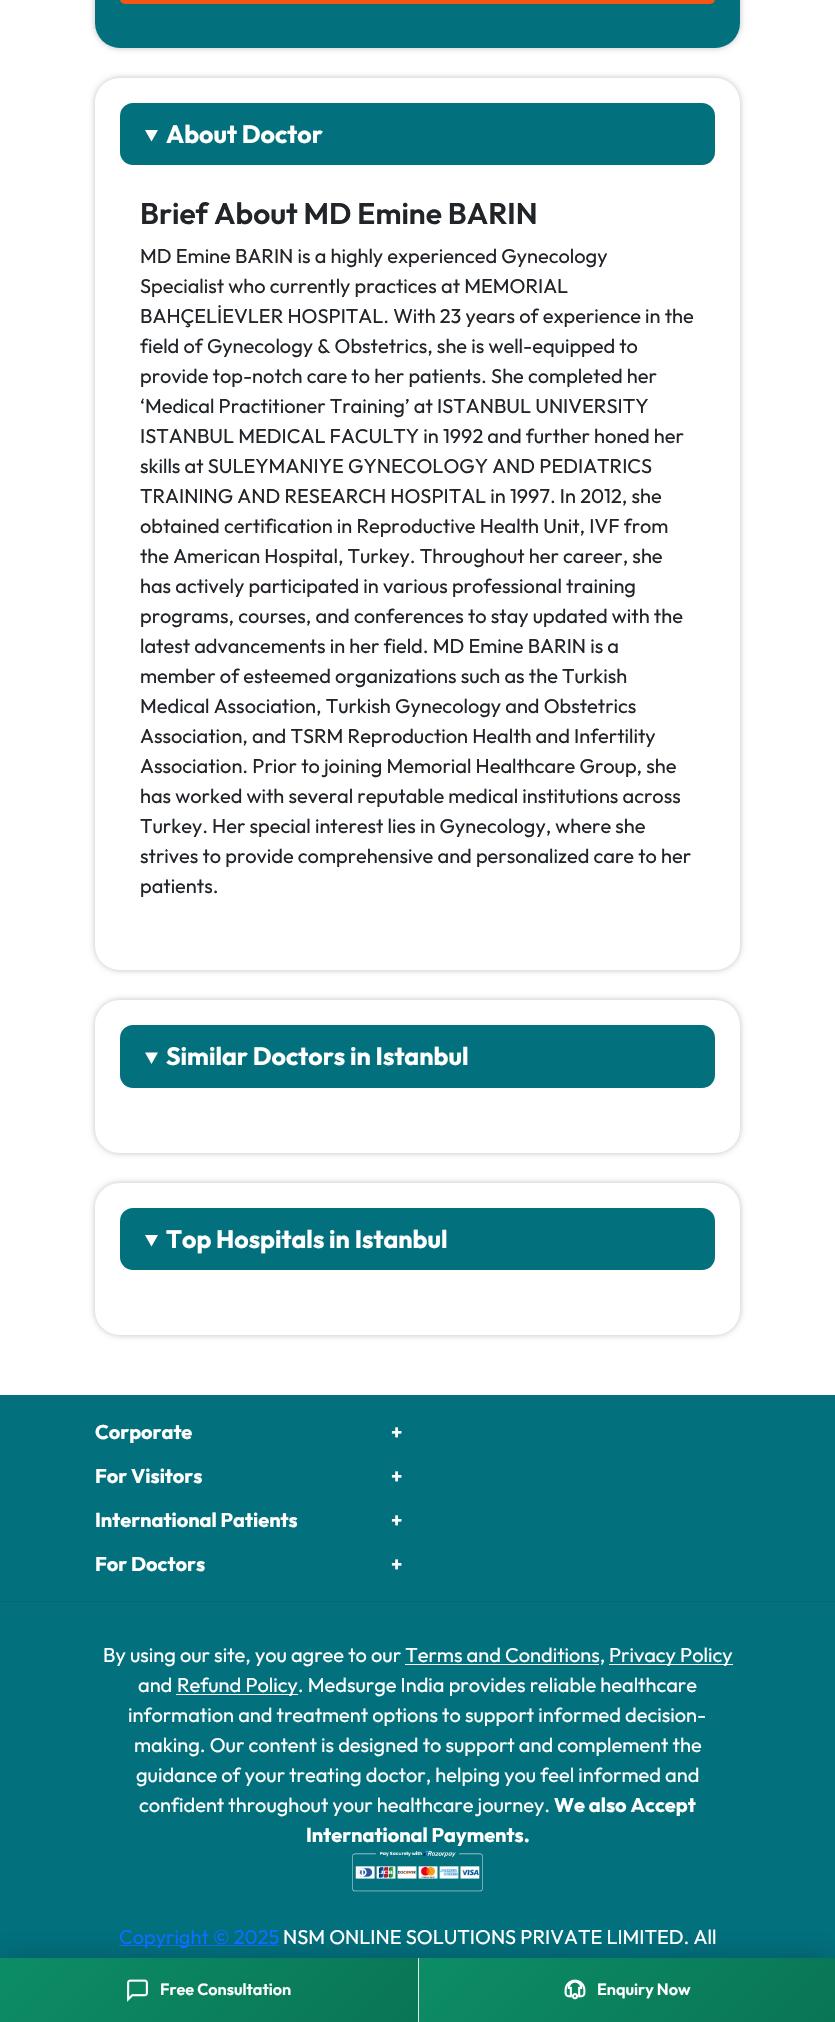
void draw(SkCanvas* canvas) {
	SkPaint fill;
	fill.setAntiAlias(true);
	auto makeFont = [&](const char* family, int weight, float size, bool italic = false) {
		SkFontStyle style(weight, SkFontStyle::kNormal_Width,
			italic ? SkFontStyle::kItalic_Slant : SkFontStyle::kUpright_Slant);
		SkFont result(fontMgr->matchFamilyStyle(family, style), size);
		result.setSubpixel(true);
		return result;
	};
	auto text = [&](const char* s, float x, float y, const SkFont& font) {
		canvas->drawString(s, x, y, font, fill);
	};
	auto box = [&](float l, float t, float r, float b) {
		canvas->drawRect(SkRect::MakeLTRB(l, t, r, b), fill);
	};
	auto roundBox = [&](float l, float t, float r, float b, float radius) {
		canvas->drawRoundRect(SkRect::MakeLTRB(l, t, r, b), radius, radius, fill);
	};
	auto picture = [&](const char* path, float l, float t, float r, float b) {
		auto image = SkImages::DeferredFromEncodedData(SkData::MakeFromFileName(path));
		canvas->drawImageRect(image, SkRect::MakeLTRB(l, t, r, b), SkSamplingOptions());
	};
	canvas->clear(0xFFFFFFFF);
	fill.setColor(0x40000000);
	fill.setMaskFilter(SkMaskFilter::MakeBlur(kNormal_SkBlurStyle, 3));
	canvas->drawRoundRect(SkRect::MakeLTRB(95, -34, 740, 48), 25, 25, fill);
	fill.setMaskFilter(nullptr);
	fill.setColor(0xFF02707D);
	roundBox(95, -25, 740, 48, 25);
	fill.setColor(0xFFF65614);
	roundBox(120, -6, 715, 4, 6);
	canvas->save();
	canvas->clipPath(SkPathBuilder(SkPathFillType::kEvenOdd).moveTo(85, 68).lineTo(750, 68).lineTo(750, 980).lineTo(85, 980).close().moveTo(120, 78).lineTo(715, 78).cubicTo(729, 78, 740, 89, 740, 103).lineTo(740, 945).cubicTo(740, 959, 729, 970, 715, 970).lineTo(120, 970).cubicTo(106, 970, 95, 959, 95, 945).lineTo(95, 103).cubicTo(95, 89, 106, 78, 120, 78).close().detach(), true);
	fill.setColor(0x40000000);
	fill.setMaskFilter(SkMaskFilter::MakeBlur(kNormal_SkBlurStyle, 3));
	canvas->drawRoundRect(SkRect::MakeLTRB(95, 78, 740, 970), 25, 25, fill);
	fill.setMaskFilter(nullptr);
	canvas->restore();
	fill.setColor(0xFF02707D);
	roundBox(120, 103, 715, 165, 13);
	fill.setColor(0xFFFFFFFF);
	canvas->drawPath(SkPathBuilder().moveTo(145, 130).lineTo(158, 130).lineTo(151.5f, 141.5f).close().detach(), fill);
	canvas->save();
	canvas->clipPath(SkPathBuilder(SkPathFillType::kEvenOdd).moveTo(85, 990).lineTo(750, 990).lineTo(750, 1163).lineTo(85, 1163).close().moveTo(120, 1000).lineTo(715, 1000).cubicTo(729, 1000, 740, 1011, 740, 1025).lineTo(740, 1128).cubicTo(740, 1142, 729, 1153, 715, 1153).lineTo(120, 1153).cubicTo(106, 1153, 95, 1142, 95, 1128).lineTo(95, 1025).cubicTo(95, 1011, 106, 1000, 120, 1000).close().detach(), true);
	fill.setColor(0x40000000);
	fill.setMaskFilter(SkMaskFilter::MakeBlur(kNormal_SkBlurStyle, 3));
	canvas->drawRoundRect(SkRect::MakeLTRB(95, 1000, 740, 1153), 25, 25, fill);
	fill.setMaskFilter(nullptr);
	canvas->restore();
	fill.setColor(0xFF02707D);
	roundBox(120, 1025, 715, 1088, 13);
	fill.setColor(0xFFFFFFFF);
	canvas->drawPath(SkPathBuilder().moveTo(145, 1052.5f).lineTo(158, 1052.5f).lineTo(151.5f, 1064).close().detach(), fill);
	canvas->save();
	canvas->clipPath(SkPathBuilder(SkPathFillType::kEvenOdd).moveTo(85, 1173).lineTo(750, 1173).lineTo(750, 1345).lineTo(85, 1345).close().moveTo(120, 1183).lineTo(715, 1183).cubicTo(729, 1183, 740, 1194, 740, 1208).lineTo(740, 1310).cubicTo(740, 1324, 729, 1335, 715, 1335).lineTo(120, 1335).cubicTo(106, 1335, 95, 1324, 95, 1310).lineTo(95, 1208).cubicTo(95, 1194, 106, 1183, 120, 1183).close().detach(), true);
	fill.setColor(0x40000000);
	fill.setMaskFilter(SkMaskFilter::MakeBlur(kNormal_SkBlurStyle, 3));
	canvas->drawRoundRect(SkRect::MakeLTRB(95, 1183, 740, 1335), 25, 25, fill);
	fill.setMaskFilter(nullptr);
	canvas->restore();
	fill.setColor(0xFF02707D);
	roundBox(120, 1208, 715, 1270, 13);
	fill.setColor(0xFFFFFFFF);
	canvas->drawPath(SkPathBuilder().moveTo(145, 1235).lineTo(158, 1235).lineTo(151.5f, 1246.5f).close().detach(), fill);
	fill.setColor(0xFF02707D);
	box(0, 1395, 835, 1958);
	fill.setColor(0xFF066874);
	box(0, 1601, 835, 1602);
	fill.setColor(0xFFFFFFFF);
	box(609, 1664, 733, 1665);
	box(405, 1664, 599, 1665);
	box(176, 1694, 298, 1695);
	picture("image0.png", 352, 1850, 483, 1892);
	fill.setColor(0xFF0D6EFD);
	box(119, 1945, 279, 1946);
	fill.setColor(0x26000000);
	fill.setMaskFilter(SkMaskFilter::MakeBlur(kNormal_SkBlurStyle, 12.5f));
	canvas->drawRect(SkRect::MakeLTRB(0, 1953, 835, 2018), fill);
	fill.setMaskFilter(nullptr);
	fill.setColor(0xFFE5E7EB);
	box(418, 1958, 419, 2022);
	{
		const SkColor colors[] = {0xFF0C8D66, 0xFF0A7555};
		const float stops[] = {0, 1};
		const SkPoint ends[] = {{88, 1869}, {329, 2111}};
		fill.setShader(SkGradientShader::MakeLinear(ends, colors, stops, 2, SkTileMode::kClamp));
		fill.setAlpha(255);
	}
	box(0, 1958, 418, 2022);
	picture("image1.png", 127, 1979, 148, 2002);
	{
		const SkColor colors[] = {0xFF0C8D66, 0xFF0A7555};
		const float stops[] = {0, 1};
		const SkPoint ends[] = {{507, 1870}, {747, 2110}};
		fill.setShader(SkGradientShader::MakeLinear(ends, colors, stops, 2, SkTileMode::kClamp));
		fill.setAlpha(255);
	}
	box(419, 1958, 835, 2022);
	picture("image2.png", 564, 1979, 586, 2000);
	auto font1 = makeFont("Outfit", 700, 25);
	fill.setShader(nullptr);
	fill.setColor(0xFFFFFFFF);
	text("About Doctor", 166, 143, font1);
	auto font2 = makeFont("Outfit", 600, 30);
	fill.setColor(0xFF212529);
	text("Brief About MD Emine BARIN", 140, 224, font2);
	auto font3 = makeFont("Outfit", 400, 20);
	text("MD Emine BARIN is a highly experienced Gynecology", 140, 263, font3);
	text("Specialist who currently practices at MEMORIAL", 140, 293, font3);
	text("BAHÇELİEVLER HOSPITAL. With 23 years of experience in the", 140, 323, font3);
	text("field of Gynecology & Obstetrics, she is well-equipped to", 140, 353, font3);
	text("provide top-notch care to her patients. She completed her", 140, 383, font3);
	text("‘Medical Practitioner Training’ at ISTANBUL UNIVERSITY", 140, 413, font3);
	text("ISTANBUL MEDICAL FACULTY in 1992 and further honed her", 140, 443, font3);
	text("skills at SULEYMANIYE GYNECOLOGY AND PEDIATRICS", 140, 473, font3);
	text("TRAINING AND RESEARCH HOSPITAL in 1997. In 2012, she", 140, 503, font3);
	text("obtained certification in Reproductive Health Unit, IVF from", 140, 533, font3);
	text("the American Hospital, Turkey. Throughout her career, she", 140, 563, font3);
	text("has actively participated in various professional training", 140, 593, font3);
	text("programs, courses, and conferences to stay updated with the", 140, 623, font3);
	text("latest advancements in her field. MD Emine BARIN is a", 140, 653, font3);
	text("member of esteemed organizations such as the Turkish", 140, 683, font3);
	text("Medical Association, Turkish Gynecology and Obstetrics", 140, 713, font3);
	text("Association, and TSRM Reproduction Health and Infertility", 140, 743, font3);
	text("Association. Prior to joining Memorial Healthcare Group, she", 140, 773, font3);
	text("has worked with several reputable medical institutions across", 140, 803, font3);
	text("Turkey. Her special interest lies in Gynecology, where she", 140, 833, font3);
	text("strives to provide comprehensive and personalized care to her", 140, 863, font3);
	text("patients.", 140, 893, font3);
	fill.setColor(0xFFFFFFFF);
	text("Similar Doctors in Istanbul", 166, 1065, font1);
	text("Top Hospitals in Istanbul", 166, 1248, font1);
	auto font4 = makeFont("Outfit", 700, 20);
	text("Corporate", 95, 1439, font4);
	text("+", 391, 1439, font4);
	text("For Visitors", 95, 1483, font4);
	text("+", 391, 1483, font4);
	text("International Patients", 95, 1527, font4);
	text("+", 391, 1527, font4);
	text("For Doctors", 95, 1571, font4);
	text("+", 391, 1571, font4);
	text("By using our site, you agree to our Terms and Conditions,", 103, 1662, font3);
	text("Privacy Policy", 609, 1662, font3);
	text("and", 138, 1692, font3);
	text("Refund Policy. Medsurge India provides reliable healthcare", 177, 1692, font3);
	text("information and treatment options to support informed decision-", 128, 1722, font3);
	text("making. Our content is designed to support and complement the", 134, 1752, font3);
	text("guidance of your treating doctor, helping you feel informed and", 136, 1782, font3);
	text("confident throughout your healthcare journey.", 139, 1812, font3);
	text("We also Accept", 554, 1812, font4);
	text("International Payments.", 306, 1842, font4);
	fill.setColor(0xFF0D6EFD);
	text("Copyright © 2025", 119, 1944, font3);
	fill.setColor(0xFFFFFFFF);
	text("NSM ONLINE SOLUTIONS PRIVATE LIMITED. All", 283, 1944, font3);
	auto font5 = makeFont("Outfit", 600, 16.25f);
	text("Free Consultation", 160, 1995, font5);
	text("Enquiry Now", 597, 1995, font5);
}
